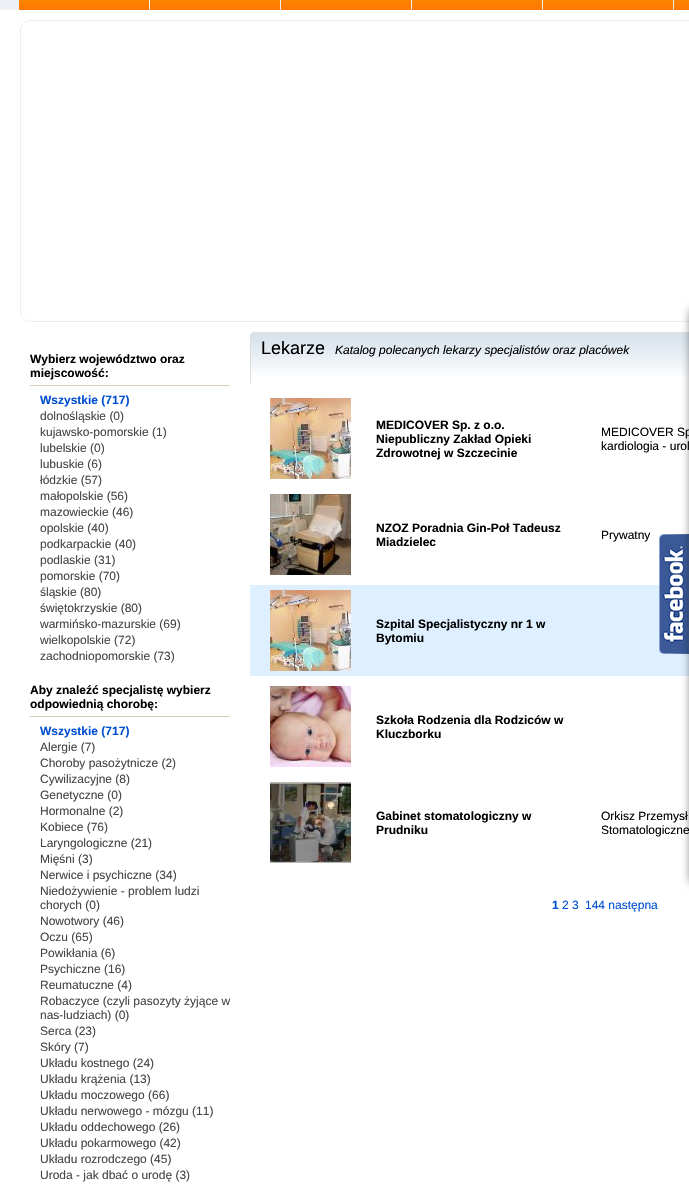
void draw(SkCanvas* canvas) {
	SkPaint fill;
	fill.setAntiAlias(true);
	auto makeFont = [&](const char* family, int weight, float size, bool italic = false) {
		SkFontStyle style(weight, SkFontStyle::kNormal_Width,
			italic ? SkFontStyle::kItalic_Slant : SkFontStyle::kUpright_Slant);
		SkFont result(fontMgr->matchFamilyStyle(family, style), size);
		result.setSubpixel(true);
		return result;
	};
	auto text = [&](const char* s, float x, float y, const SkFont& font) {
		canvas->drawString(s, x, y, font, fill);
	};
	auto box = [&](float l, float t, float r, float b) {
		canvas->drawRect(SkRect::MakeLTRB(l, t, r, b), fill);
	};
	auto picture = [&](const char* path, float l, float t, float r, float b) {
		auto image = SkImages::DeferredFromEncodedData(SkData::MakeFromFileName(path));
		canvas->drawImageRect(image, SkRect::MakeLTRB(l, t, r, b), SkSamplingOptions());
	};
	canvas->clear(0xFFFFFFFF);
	fill.setColor(0xFFDEEFFF);
	box(250, 585, 689, 676);
	picture("image0.png", 659, 534, 689, 654);
	fill.setStyle(SkPaint::kStroke_Style);
	fill.setStrokeWidth(1);
	fill.setColor(0xFFEEEEEE);
	canvas->drawRoundRect(SkRect::MakeLTRB(20.5f, 20.5f, 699.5f, 321.5f), 9.5f, 9.5f, fill);
	picture("image4.png", 250, 333, 689, 375);
	fill.setStyle(SkPaint::kFill_Style);
	fill.setColor(0xFFDDDDDD);
	canvas->drawPath(SkPathBuilder(SkPathFillType::kEvenOdd).moveTo(255, 332).lineTo(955, 332).cubicTo(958, 332, 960, 334, 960, 337).lineTo(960, 383).lineTo(250, 383).lineTo(250, 337).cubicTo(250, 334, 252, 332, 255, 332).close().moveTo(255, 333).lineTo(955, 333).cubicTo(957, 333, 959, 335, 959, 337).lineTo(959, 383).lineTo(251, 383).lineTo(251, 337).cubicTo(251, 335, 253, 333, 255, 333).close().detach(), fill);
	fill.setColor(0x99000000);
	fill.setMaskFilter(SkMaskFilter::MakeBlur(kNormal_SkBlurStyle, 5));
	canvas->drawRect(SkRect::MakeLTRB(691, 310, 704, 882), fill);
	fill.setMaskFilter(nullptr);
	picture("image1.png", 0, 0, 674, 10);
	picture("image2.png", 19, 0, 149, 10);
	picture("image2.png", 150, 0, 280, 10);
	picture("image2.png", 281, 0, 411, 10);
	picture("image2.png", 412, 0, 542, 10);
	picture("image2.png", 543, 0, 673, 10);
	picture("image3.png", 674, 0, 689, 10);
	fill.setColor(0xFFDAD0B4);
	box(30, 385, 230, 386);
	box(30, 716, 230, 717);
	picture("image5.png", 270, 398, 351, 479);
	picture("image6.png", 270, 494, 351, 575);
	picture("image5.png", 270, 590, 351, 671);
	picture("image7.png", 270, 686, 351, 767);
	picture("image8.png", 270, 782, 351, 863);
	auto font1 = makeFont("Liberation Sans", 700, 12);
	fill.setColor(0xFF000000);
	text("Wybierz województwo oraz", 30, 363, font1);
	text("miejscowość:", 30, 377, font1);
	fill.setColor(0xFF004FD2);
	text("Wszystkie (717)", 40, 404, font1);
	auto font2 = makeFont("Liberation Sans", 400, 12);
	fill.setColor(0xFF444444);
	text("dolnośląskie (0)", 40, 420, font2);
	text("kujawsko-pomorskie (1)", 40, 436, font2);
	text("lubelskie (0)", 40, 452, font2);
	text("lubuskie (6)", 40, 468, font2);
	text("łódzkie (57)", 40, 484, font2);
	text("małopolskie (56)", 40, 500, font2);
	text("mazowieckie (46)", 40, 516, font2);
	text("opolskie (40)", 40, 532, font2);
	text("podkarpackie (40)", 40, 548, font2);
	text("podlaskie (31)", 40, 564, font2);
	text("pomorskie (70)", 40, 580, font2);
	text("śląskie (80)", 40, 596, font2);
	text("świętokrzyskie (80)", 40, 612, font2);
	text("warmińsko-mazurskie (69)", 40, 628, font2);
	text("wielkopolskie (72)", 40, 644, font2);
	text("zachodniopomorskie (73)", 40, 660, font2);
	fill.setColor(0xFF000000);
	text("Aby znaleźć specjalistę wybierz", 30, 694, font1);
	text("odpowiednią chorobę:", 30, 708, font1);
	fill.setColor(0xFF004FD2);
	text("Wszystkie (717)", 40, 735, font1);
	fill.setColor(0xFF444444);
	text("Alergie (7)", 40, 751, font2);
	text("Choroby pasożytnicze (2)", 40, 767, font2);
	text("Cywilizacyjne (8)", 40, 783, font2);
	text("Genetyczne (0)", 40, 799, font2);
	text("Hormonalne (2)", 40, 815, font2);
	text("Kobiece (76)", 40, 831, font2);
	text("Laryngologiczne (21)", 40, 847, font2);
	text("Mięśni (3)", 40, 863, font2);
	text("Nerwice i psychiczne (34)", 40, 879, font2);
	text("Niedożywienie - problem ludzi", 40, 895, font2);
	text("chorych (0)", 40, 909, font2);
	text("Nowotwory (46)", 40, 925, font2);
	text("Oczu (65)", 40, 941, font2);
	text("Powikłania (6)", 40, 957, font2);
	text("Psychiczne (16)", 40, 973, font2);
	text("Reumatuczne (4)", 40, 989, font2);
	text("Robaczyce (czyli pasozyty żyjące w", 40, 1005, font2);
	text("nas-ludziach) (0)", 40, 1019, font2);
	text("Serca (23)", 40, 1035, font2);
	text("Skóry (7)", 40, 1051, font2);
	text("Układu kostnego (24)", 40, 1067, font2);
	text("Układu krążenia (13)", 40, 1083, font2);
	text("Układu moczowego (66)", 40, 1099, font2);
	text("Układu nerwowego - mózgu (11)", 40, 1115, font2);
	text("Układu oddechowego (26)", 40, 1131, font2);
	text("Układu pokarmowego (42)", 40, 1147, font2);
	text("Układu rozrodczego (45)", 40, 1163, font2);
	text("Uroda - jak dbać o urodę (3)", 40, 1179, font2);
	auto font3 = makeFont("Liberation Sans", 400, 18);
	fill.setColor(0xFF000000);
	text("Lekarze", 261, 354, font3);
	auto font4 = makeFont("Liberation Sans", 400, 12, true);
	text("Katalog polecanych lekarzy specjalistów oraz placówek", 335, 354, font4);
	text("MEDICOVER Sp. z o.o.", 376, 429, font1);
	text("Niepubliczny Zakład Opieki", 376, 443, font1);
	text("Zdrowotnej w Szczecinie", 376, 457, font1);
	text("MEDICOVER Sp", 601, 436, font2);
	text("kardiologia - urol", 601, 450, font2);
	text("NZOZ Poradnia Gin-Poł Tadeusz", 376, 532, font1);
	text("Miadzielec", 376, 546, font1);
	text("Prywatny", 601, 539, font2);
	text("Szpital Specjalistyczny nr 1 w", 376, 628, font1);
	text("Bytomiu", 376, 642, font1);
	text("Szkoła Rodzenia dla Rodziców w", 376, 724, font1);
	text("Kluczborku", 376, 738, font1);
	text("Gabinet stomatologiczny w", 376, 820, font1);
	text("Prudniku", 376, 834, font1);
	text("Orkisz Przemysł", 601, 820, font2);
	text("Stomatologiczne", 601, 834, font2);
	fill.setColor(0xFF004FD2);
	text("1", 552, 909, font1);
	text("2 3", 562, 909, font2);
	text("144 następna", 585, 909, font2);
}
